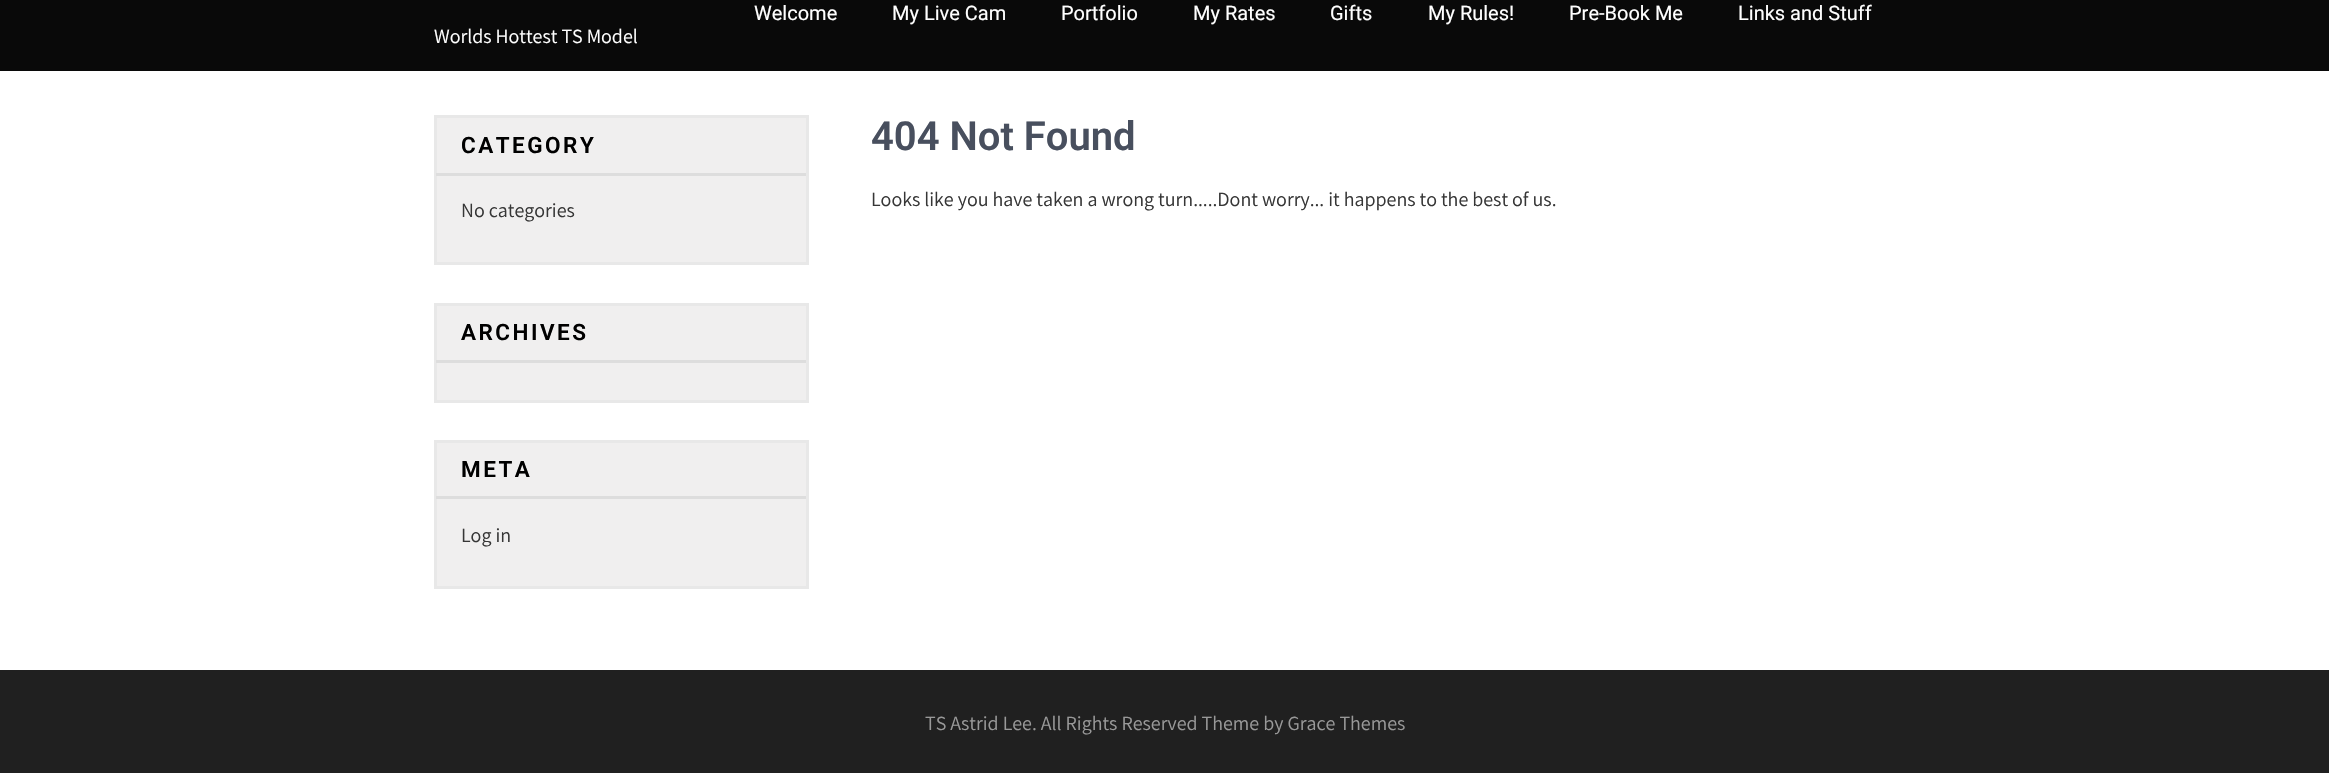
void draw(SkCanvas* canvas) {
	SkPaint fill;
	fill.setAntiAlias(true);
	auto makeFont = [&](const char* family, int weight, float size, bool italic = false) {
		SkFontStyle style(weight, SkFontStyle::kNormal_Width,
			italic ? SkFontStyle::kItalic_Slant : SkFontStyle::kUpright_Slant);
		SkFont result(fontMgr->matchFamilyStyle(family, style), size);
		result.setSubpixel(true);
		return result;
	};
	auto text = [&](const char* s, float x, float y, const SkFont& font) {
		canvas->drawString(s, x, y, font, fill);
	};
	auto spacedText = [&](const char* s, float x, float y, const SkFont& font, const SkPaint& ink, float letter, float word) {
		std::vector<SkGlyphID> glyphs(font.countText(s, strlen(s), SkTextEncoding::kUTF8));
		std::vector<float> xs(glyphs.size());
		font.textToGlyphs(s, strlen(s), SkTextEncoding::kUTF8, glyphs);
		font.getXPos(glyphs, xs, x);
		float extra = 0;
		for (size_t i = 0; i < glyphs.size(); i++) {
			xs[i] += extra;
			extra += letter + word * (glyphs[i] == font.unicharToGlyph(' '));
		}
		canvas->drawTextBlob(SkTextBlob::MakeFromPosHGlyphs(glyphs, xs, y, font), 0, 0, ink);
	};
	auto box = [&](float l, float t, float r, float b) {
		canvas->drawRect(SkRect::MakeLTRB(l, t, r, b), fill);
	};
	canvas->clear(0xFFFFFFFF);
	fill.setColor(0xFF090909);
	box(0, 0, 2329, 71);
	fill.setColor(0xFFF0EFEF);
	canvas->drawRect(SkRect::MakeLTRB(435.5f, 116.5f, 807.5f, 263.5f), fill);
	fill.setStyle(SkPaint::kStroke_Style);
	fill.setStrokeWidth(3);
	fill.setColor(0xFFE8E8E8);
	canvas->drawRect(SkRect::MakeLTRB(435.5f, 116.5f, 807.5f, 263.5f), fill);
	fill.setStyle(SkPaint::kFill_Style);
	fill.setColor(0xFFDDDDDD);
	box(436, 173, 806, 176);
	fill.setColor(0xFFF0EFEF);
	canvas->drawRect(SkRect::MakeLTRB(435.5f, 304.5f, 807.5f, 401.5f), fill);
	fill.setStyle(SkPaint::kStroke_Style);
	fill.setColor(0xFFE8E8E8);
	canvas->drawRect(SkRect::MakeLTRB(435.5f, 304.5f, 807.5f, 401.5f), fill);
	fill.setStyle(SkPaint::kFill_Style);
	fill.setColor(0xFFDDDDDD);
	box(436, 360, 806, 363);
	fill.setColor(0xFFF0EFEF);
	canvas->drawRect(SkRect::MakeLTRB(435.5f, 441.5f, 807.5f, 587.5f), fill);
	fill.setStyle(SkPaint::kStroke_Style);
	fill.setColor(0xFFE8E8E8);
	canvas->drawRect(SkRect::MakeLTRB(435.5f, 441.5f, 807.5f, 587.5f), fill);
	fill.setStyle(SkPaint::kFill_Style);
	fill.setColor(0xFFDDDDDD);
	box(436, 496, 806, 499);
	fill.setColor(0xFF202020);
	box(0, 670, 2329, 773);
	auto font1 = makeFont("Roboto", 400, 20);
	fill.setColor(0xFFFFFFFF);
	text("Welcome", 754, 20, font1);
	text("My Live Cam", 892, 20, font1);
	text("Portfolio", 1061, 20, font1);
	text("My Rates", 1193, 20, font1);
	text("Gifts", 1330, 20, font1);
	text("My Rules!", 1428, 20, font1);
	text("Pre-Book Me", 1569, 20, font1);
	text("Links and Stuff", 1738, 20, font1);
	auto font2 = makeFont("Assistant", 400, 20);
	text("Worlds Hottest TS Model", 434, 43, font2);
	auto font3 = makeFont("Roboto", 600, 22.5f);
	fill.setColor(0xFF000000);
	spacedText("CATEGORY", 461, 153, font3, fill, 2.5f, 0);
	fill.setColor(0xFF363636);
	text("No categories", 461, 217, font2);
	fill.setColor(0xFF000000);
	spacedText("ARCHIVES", 461, 340, font3, fill, 2.5f, 0);
	spacedText("META", 461, 477, font3, fill, 2.5f, 0);
	fill.setColor(0xFF363636);
	text("Log in", 461, 542, font2);
	auto font4 = makeFont("Roboto", 600, 40);
	fill.setColor(0xFF484F5E);
	text("404 Not Found", 871, 150, font4);
	fill.setColor(0xFF363636);
	text("Looks like you have taken a wrong turn.....Dont worry... it happens to the best of us.", 871, 206, font2);
	fill.setColor(0xFF999999);
	text("TS Astrid Lee. All Rights Reserved Theme by Grace Themes", 925, 730, font2);
}
